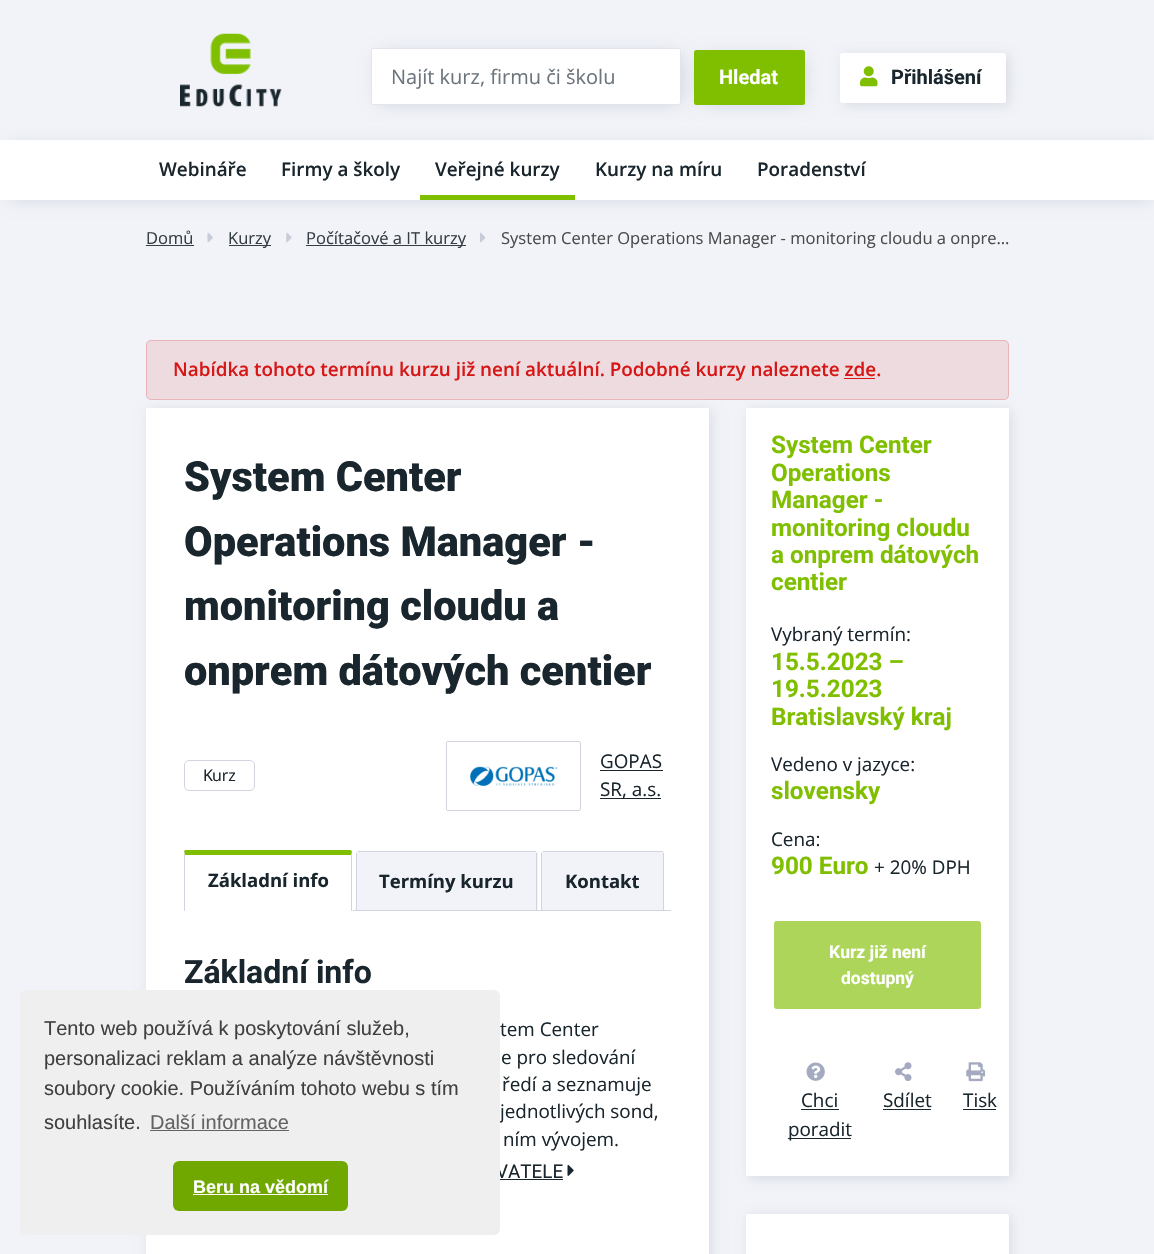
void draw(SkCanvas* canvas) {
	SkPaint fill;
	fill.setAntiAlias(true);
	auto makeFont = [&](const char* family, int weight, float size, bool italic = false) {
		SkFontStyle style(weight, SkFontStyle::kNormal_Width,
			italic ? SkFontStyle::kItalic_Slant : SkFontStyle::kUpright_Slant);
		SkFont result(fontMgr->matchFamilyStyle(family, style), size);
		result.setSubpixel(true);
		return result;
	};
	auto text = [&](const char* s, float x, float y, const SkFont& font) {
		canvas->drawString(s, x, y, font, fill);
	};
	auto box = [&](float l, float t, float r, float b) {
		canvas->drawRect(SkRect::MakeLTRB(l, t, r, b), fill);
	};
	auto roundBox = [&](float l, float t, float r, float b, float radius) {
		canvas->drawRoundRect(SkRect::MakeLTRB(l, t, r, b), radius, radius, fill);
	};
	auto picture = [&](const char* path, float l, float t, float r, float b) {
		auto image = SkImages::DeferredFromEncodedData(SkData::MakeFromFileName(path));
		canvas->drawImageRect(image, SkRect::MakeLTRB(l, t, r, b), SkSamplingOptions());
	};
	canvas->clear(0xFFF1F3F8);
	picture("image0.png", 180, 33, 282, 107);
	fill.setColor(0xFFC2C6D5);
	fill.setMaskFilter(SkMaskFilter::MakeBlur(kNormal_SkBlurStyle, 9.5f));
	canvas->drawRect(SkRect::MakeLTRB(380, 56, 678, 101), fill);
	fill.setMaskFilter(nullptr);
	fill.setColor(0xFFFFFFFF);
	canvas->drawRoundRect(SkRect::MakeLTRB(371.5f, 48.5f, 680.5f, 104.5f), 2, 2, fill);
	fill.setStyle(SkPaint::kStroke_Style);
	fill.setStrokeWidth(1);
	fill.setColor(0xFFE3E5EC);
	canvas->drawRoundRect(SkRect::MakeLTRB(371.5f, 48.5f, 680.5f, 104.5f), 2, 2, fill);
	fill.setStyle(SkPaint::kFill_Style);
	fill.setColor(0xFFC2C6D5);
	fill.setMaskFilter(SkMaskFilter::MakeBlur(kNormal_SkBlurStyle, 9.5f));
	canvas->drawRect(SkRect::MakeLTRB(703, 59, 801, 101), fill);
	fill.setMaskFilter(nullptr);
	fill.setColor(0xFF7FBF00);
	roundBox(694, 50, 805, 105, 2.5f);
	fill.setColor(0xFFD8DBE4);
	fill.setMaskFilter(SkMaskFilter::MakeBlur(kNormal_SkBlurStyle, 6));
	canvas->drawRoundRect(SkRect::MakeLTRB(843, 55, 1009, 105), 2.5f, 2.5f, fill);
	fill.setMaskFilter(nullptr);
	fill.setColor(0xFFFFFFFF);
	roundBox(840, 53, 1006, 103, 2.5f);
	picture("image1.png", 860, 66, 878, 87);
	fill.setColor(0xFFC5C9D7);
	fill.setMaskFilter(SkMaskFilter::MakeBlur(kNormal_SkBlurStyle, 9.5f));
	canvas->drawRect(SkRect::MakeLTRB(9, 149, 1151, 196), fill);
	fill.setMaskFilter(nullptr);
	fill.setColor(0xFFFFFFFF);
	box(0, 140, 1154, 200);
	fill.setColor(0xFF7FBF00);
	box(420, 195, 575, 200);
	fill.setColor(0xFF353E44);
	box(146, 245, 194, 246);
	picture("image2.png", 207, 232, 213, 243);
	box(229, 245, 271, 246);
	picture("image3.png", 286, 232, 292, 243);
	box(306, 245, 466, 246);
	picture("image4.png", 480, 232, 486, 243);
	fill.setColor(0xFFEEDBDF);
	roundBox(146, 340, 1009, 400, 5);
	fill.setStyle(SkPaint::kStroke_Style);
	fill.setColor(0x33D61716);
	canvas->drawRoundRect(SkRect::MakeLTRB(146.5f, 340.5f, 1008.5f, 399.5f), 4.5f, 4.5f, fill);
	fill.setStyle(SkPaint::kFill_Style);
	fill.setColor(0xFFD61716);
	box(844, 378, 875, 379);
	fill.setColor(0xFFD8DBE4);
	fill.setMaskFilter(SkMaskFilter::MakeBlur(kNormal_SkBlurStyle, 6));
	canvas->drawRect(SkRect::MakeLTRB(149, 410, 711, 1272), fill);
	fill.setMaskFilter(nullptr);
	fill.setColor(0xFFFFFFFF);
	box(146, 408, 709, 1254);
	fill.setStyle(SkPaint::kStroke_Style);
	fill.setColor(0xFFD1D4DF);
	canvas->drawRoundRect(SkRect::MakeLTRB(184.5f, 760.5f, 254.5f, 790.5f), 4.5f, 4.5f, fill);
	canvas->drawRoundRect(SkRect::MakeLTRB(446.5f, 741.5f, 580.5f, 810.5f), 1.5f, 1.5f, fill);
	picture("image5.png", 470, 766, 558, 786);
	fill.setStyle(SkPaint::kFill_Style);
	fill.setColor(0xFF1A262D);
	box(600, 770, 663, 771);
	box(600, 798, 661, 799);
	fill.setColor(0xFFD1D4DF);
	box(353, 910, 671, 911);
	fill.setColor(0xFF7FBF00);
	canvas->drawPath(SkPathBuilder().moveTo(186, 850).lineTo(350, 850).cubicTo(351, 850, 352, 851, 352, 852).lineTo(351, 856).lineTo(351, 855).lineTo(185, 855).lineTo(184, 851).cubicTo(184, 851, 185, 850, 186, 850).close().detach(), fill);
	fill.setColor(0xFFD1D4DF);
	canvas->drawPath(SkPathBuilder().moveTo(352, 852).lineTo(351, 856).lineTo(351, 911).lineTo(352, 911).close().detach(), fill);
	canvas->drawPath(SkPathBuilder().moveTo(184, 851).lineTo(185, 855).lineTo(185, 911).lineTo(184, 911).close().detach(), fill);
	fill.setColor(0xFFF1F3F8);
	canvas->drawPath(SkPathBuilder().moveTo(358.5f, 851).lineTo(535.5f, 851).cubicTo(537, 851, 538, 852, 538, 853.5f).lineTo(538, 910).lineTo(356, 910).lineTo(356, 853.5f).cubicTo(356, 852, 357, 851, 358.5f, 851).close().detach(), fill);
	fill.setColor(0xFFD1D4DF);
	box(358, 851, 536, 852);
	box(536, 853, 537, 910);
	box(356, 853, 357, 910);
	fill.setColor(0xFFF1F3F8);
	canvas->drawPath(SkPathBuilder().moveTo(543.5f, 851).lineTo(661.5f, 851).cubicTo(663, 851, 664, 852, 664, 853.5f).lineTo(664, 910).lineTo(541, 910).lineTo(541, 853.5f).cubicTo(541, 852, 542, 851, 543.5f, 851).close().detach(), fill);
	fill.setColor(0xFFD1D4DF);
	box(543, 851, 663, 852);
	box(663, 853, 664, 910);
	box(541, 853, 542, 910);
	fill.setColor(0xFF1A262D);
	box(500, 1179, 563, 1180);
	picture("image6.png", 567, 1165, 574, 1176);
	fill.setColor(0xFFD8DBE4);
	fill.setMaskFilter(SkMaskFilter::MakeBlur(kNormal_SkBlurStyle, 6));
	canvas->drawRoundRect(SkRect::MakeLTRB(749, 410, 1011, 1179), 2, 2, fill);
	fill.setMaskFilter(nullptr);
	fill.setColor(0xFFFFFFFF);
	box(746, 408, 1009, 1176);
	fill.setColor(0xFFACD559);
	canvas->drawRoundRect(SkRect::MakeLTRB(774.5f, 921.5f, 980.5f, 1008.5f), 2, 2, fill);
	fill.setStyle(SkPaint::kStroke_Style);
	canvas->drawRoundRect(SkRect::MakeLTRB(774.5f, 921.5f, 980.5f, 1008.5f), 2, 2, fill);
	picture("image7.png", 806, 1062, 825, 1081);
	fill.setStyle(SkPaint::kFill_Style);
	fill.setColor(0xFF1A262D);
	box(801, 1109, 839, 1110);
	box(788, 1138, 851, 1139);
	picture("image8.png", 895, 1062, 912, 1081);
	box(883, 1109, 931, 1110);
	picture("image9.png", 966, 1062, 986, 1082);
	box(963, 1109, 996, 1110);
	fill.setColor(0xFFD8DBE4);
	fill.setMaskFilter(SkMaskFilter::MakeBlur(kNormal_SkBlurStyle, 6));
	canvas->drawRoundRect(SkRect::MakeLTRB(749, 1216, 1011, 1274), 2, 2, fill);
	fill.setMaskFilter(nullptr);
	fill.setColor(0xFFFFFFFF);
	roundBox(746, 1214, 1009, 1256, 2);
	auto font1 = makeFont("Open Sans", 400, 20);
	fill.setColor(0xFF6C757D);
	text("Najít kurz, firmu či školu", 391, 84, font1);
	auto font2 = makeFont("Roboto", 700, 20);
	fill.setColor(0xFFFFFFFF);
	text("Hledat", 719, 84, font2);
	fill.setColor(0xFF1A262D);
	text("Přihlášení", 891, 84, font2);
	auto font3 = makeFont("Open Sans", 600, 18.85f);
	text("Webináře", 159, 176, font3);
	text("Firmy a školy", 281, 176, font3);
	text("Veřejné kurzy", 435, 176, font3);
	text("Kurzy na míru", 595, 176, font3);
	text("Poradenství", 757, 176, font3);
	auto font4 = makeFont("Open Sans", 400, 16.55f);
	fill.setColor(0xFF353E44);
	text("Domů", 146, 244, font4);
	text("Kurzy", 228, 244, font4);
	text("Počítačové a IT kurzy", 306, 244, font4);
	fill.setColor(0xFF4B4B4B);
	text("System Center Operations Manager - monitoring cloudu a onpre…", 501, 244, font4);
	fill.setColor(0xFFD61716);
	text("Nabídka tohoto termínu kurzu již není aktuální. Podobné kurzy naleznete zde.", 173, 376, font3);
	auto font5 = makeFont("Roboto", 900, 41.5f);
	fill.setColor(0xFF1A262D);
	text("System Center", 184, 491, font5);
	text("Operations Manager -", 184, 556, font5);
	text("monitoring cloudu a", 184, 620, font5);
	text("onprem dátových centier", 184, 685, font5);
	auto font6 = makeFont("Noto Sans", 400, 16);
	text("K", 203, 781, font6);
	auto font7 = makeFont("Open Sans", 400, 16);
	text("urz", 212, 781, font7);
	auto font8 = makeFont("Open Sans", 400, 18.85f);
	text("GOPAS", 600, 768, font8);
	text("SR, a.s.", 600, 796, font8);
	auto font9 = makeFont("Open Sans", 700, 18.5f);
	text("Základní info", 208, 887, font9);
	text("Termíny kurzu", 379, 888, font9);
	text("Kontakt", 565, 888, font9);
	auto font10 = makeFont("Roboto", 700, 32);
	text("Základní info", 184, 983, font10);
	text("tem Center", 500, 1036, font8);
	text("e pro sledování", 501, 1064, font8);
	text("ředí a seznamuje", 502, 1091, font8);
	text("jednotlivých sond,", 500, 1118, font8);
	text("ním vývojem.", 503, 1146, font8);
	auto font11 = makeFont("Roboto", 400, 18.85f);
	text("VATELE", 496, 1178, font11);
	auto font12 = makeFont("Roboto", 700, 24.25f);
	fill.setColor(0xFF7FBF00);
	text("System Center", 771, 453, font12);
	text("Operations", 771, 481, font12);
	text("Manager -", 771, 508, font12);
	text("monitoring cloudu", 771, 536, font12);
	text("a onprem dátových", 771, 563, font12);
	text("centier", 771, 590, font12);
	fill.setColor(0xFF1A262D);
	text("Vybraný termín:", 771, 641, font8);
	fill.setColor(0xFF7FBF00);
	text("15.5.2023 –", 771, 670, font12);
	text("19.5.2023", 771, 697, font12);
	text("Bratislavský kraj", 771, 725, font12);
	fill.setColor(0xFF1A262D);
	text("Vedeno v jazyce:", 771, 771, font8);
	fill.setColor(0xFF7FBF00);
	text("slovensky", 771, 799, font12);
	fill.setColor(0xFF1A262D);
	text("Cena:", 771, 846, font8);
	fill.setColor(0xFF7FBF00);
	text("900 Euro", 771, 874, font12);
	fill.setColor(0xFF1A262D);
	text("+ 20% DPH", 874, 874, font8);
	auto font13 = makeFont("Roboto", 700, 17.5f);
	fill.setColor(0xFFFFFFFF);
	text("Kurz již není", 829, 958, font13);
	text("dostupný", 841, 984, font13);
	fill.setColor(0xFF1A262D);
	text("Chci", 801, 1107, font8);
	text("poradit", 788, 1136, font8);
	text("Sdílet", 883, 1107, font8);
	text("Tisk", 963, 1107, font8);
	fill.setColor(0xFFEFEFEF);
	roundBox(20, 990, 500, 1235, 6);
	auto font14 = makeFont("Liberation Sans", 400, 20);
	fill.setColor(0xFF404040);
	text("Tento web používá k poskytování služeb,", 44, 1035, font14);
	text("personalizaci reklam a analýze návštěvnosti", 44, 1065, font14);
	text("soubory cookie. Používáním tohoto webu s tím", 44, 1095, font14);
	text("souhlasíte.", 44, 1129, font14);
	fill.setColor(0xFF636363);
	text("Další informace", 150, 1129, font14);
	box(150, 1130, 289, 1131);
	fill.setColor(0xFF70A800);
	roundBox(173, 1161, 348, 1211, 6);
	auto font15 = makeFont("Liberation Sans", 700, 18);
	fill.setColor(0xFFFFFFFF);
	text("Beru na vědomí", 193, 1193, font15);
	box(193, 1194, 328, 1195);
}
